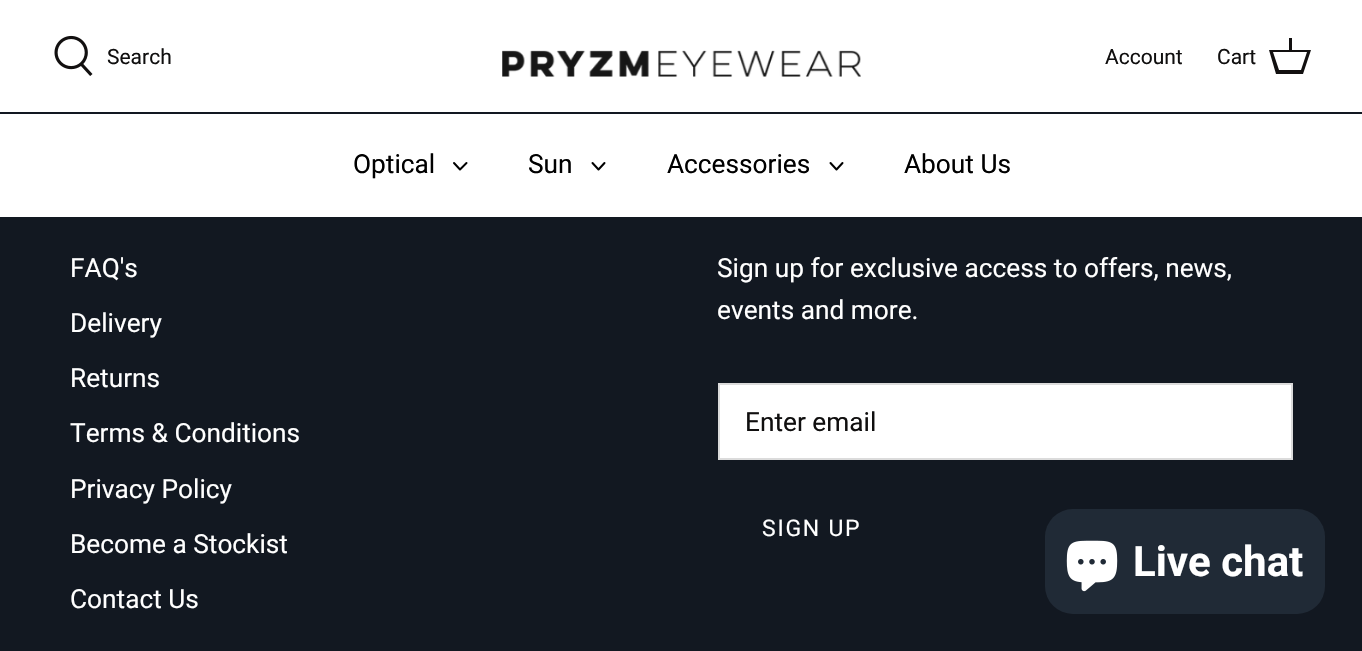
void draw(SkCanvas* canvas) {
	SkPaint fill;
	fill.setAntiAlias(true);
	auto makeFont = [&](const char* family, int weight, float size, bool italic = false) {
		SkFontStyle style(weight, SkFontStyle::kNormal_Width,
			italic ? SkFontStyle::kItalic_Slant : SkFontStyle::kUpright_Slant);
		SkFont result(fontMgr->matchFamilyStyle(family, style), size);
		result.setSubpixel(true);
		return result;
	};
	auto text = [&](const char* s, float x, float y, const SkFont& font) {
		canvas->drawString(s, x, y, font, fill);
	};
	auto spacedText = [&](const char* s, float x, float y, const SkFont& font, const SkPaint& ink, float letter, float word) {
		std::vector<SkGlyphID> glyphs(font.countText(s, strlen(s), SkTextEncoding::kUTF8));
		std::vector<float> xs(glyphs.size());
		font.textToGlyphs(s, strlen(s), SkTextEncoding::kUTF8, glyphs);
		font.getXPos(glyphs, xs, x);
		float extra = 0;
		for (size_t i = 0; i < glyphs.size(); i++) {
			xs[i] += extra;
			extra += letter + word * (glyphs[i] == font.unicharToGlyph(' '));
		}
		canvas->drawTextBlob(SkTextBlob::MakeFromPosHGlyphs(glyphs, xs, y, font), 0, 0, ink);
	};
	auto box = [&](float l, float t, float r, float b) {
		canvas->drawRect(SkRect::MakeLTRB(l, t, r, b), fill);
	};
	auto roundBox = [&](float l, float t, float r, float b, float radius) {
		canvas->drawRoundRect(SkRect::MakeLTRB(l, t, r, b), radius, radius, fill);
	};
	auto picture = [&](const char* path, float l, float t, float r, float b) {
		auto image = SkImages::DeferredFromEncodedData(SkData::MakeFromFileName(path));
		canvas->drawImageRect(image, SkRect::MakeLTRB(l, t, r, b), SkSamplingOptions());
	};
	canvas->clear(0xFF121821);
	fill.setColor(0xFFFFFFFF);
	box(0, 0, 1362, 112);
	picture("image0.png", 54, 35, 93, 76);
	picture("image1.png", 502, 50, 861, 77);
	fill.setColor(0xFF121010);
	canvas->drawPath(SkPathBuilder().moveTo(1289, 50).lineTo(1289, 38).lineTo(1292, 38).lineTo(1292, 50).lineTo(1311, 50).lineTo(1303, 74).lineTo(1276, 74).lineTo(1269, 50).close().moveTo(1273, 52).lineTo(1279, 70).lineTo(1301, 70).lineTo(1307, 52).close().detach(), fill);
	fill.setColor(0xFFFFFFFF);
	box(0, 114, 1362, 217);
	fill.setStyle(SkPaint::kStroke_Style);
	fill.setStrokeWidth(2);
	fill.setStrokeCap(SkPaint::kRound_Cap);
	fill.setStrokeJoin(SkPaint::kRound_Join);
	fill.setColor(0xFF000000);
	canvas->drawPath(SkPathBuilder().moveTo(454, 163).lineTo(460, 169.5f).lineTo(466.5f, 163).detach(), fill);
	canvas->drawPath(SkPathBuilder().moveTo(592.5f, 163).lineTo(598.5f, 169.5f).lineTo(604.5f, 163).detach(), fill);
	canvas->drawPath(SkPathBuilder().moveTo(830.5f, 163).lineTo(836.5f, 169.5f).lineTo(842.5f, 163).detach(), fill);
	fill.setStyle(SkPaint::kFill_Style);
	fill.setColor(0xFFFFFFFF);
	canvas->drawRect(SkRect::MakeLTRB(719, 384, 1292, 459), fill);
	fill.setStyle(SkPaint::kStroke_Style);
	fill.setStrokeCap(SkPaint::kButt_Cap);
	fill.setStrokeJoin(SkPaint::kMiter_Join);
	fill.setColor(0xFFDBDBDB);
	canvas->drawRect(SkRect::MakeLTRB(719, 384, 1292, 459), fill);
	fill.setStyle(SkPaint::kFill_Style);
	fill.setColor(0xFF202A36);
	roundBox(1045, 509, 1325, 614, 28);
	picture("image2.png", 1066, 540, 1118, 592);
	auto font1 = makeFont("Roboto", 400, 21);
	fill.setColor(0xFF100F0F);
	text("Search", 107, 64, font1);
	text("Account", 1105, 64, font1);
	text("Cart", 1217, 64, font1);
	auto font2 = makeFont("Roboto", 400, 26.25f);
	fill.setColor(0xFF000000);
	text("Optical", 353, 173, font2);
	text("Sun", 528, 173, font2);
	text("Accessories", 667, 173, font2);
	text("About Us", 904, 173, font2);
	fill.setColor(0xFFFFFFFF);
	text("FAQ's", 70, 277, font2);
	text("Delivery", 70, 332, font2);
	text("Returns", 70, 387, font2);
	text("Terms & Conditions", 70, 442, font2);
	text("Privacy Policy", 70, 498, font2);
	text("Become a Stockist", 70, 553, font2);
	text("Contact Us", 70, 608, font2);
	text("Sign up for exclusive access to offers, news,", 717, 277, font2);
	text("events and more.", 717, 319, font2);
	fill.setColor(0xFF100F0F);
	text("Enter email", 745, 431, font2);
	auto font3 = makeFont("Roboto", 400, 23);
	fill.setColor(0xFFFFFFFF);
	spacedText("SIGN UP", 762, 536, font3, fill, 1.75f, 0);
	auto font4 = makeFont("Roboto", 700, 42);
	text("Live chat", 1133, 576, font4);
}
